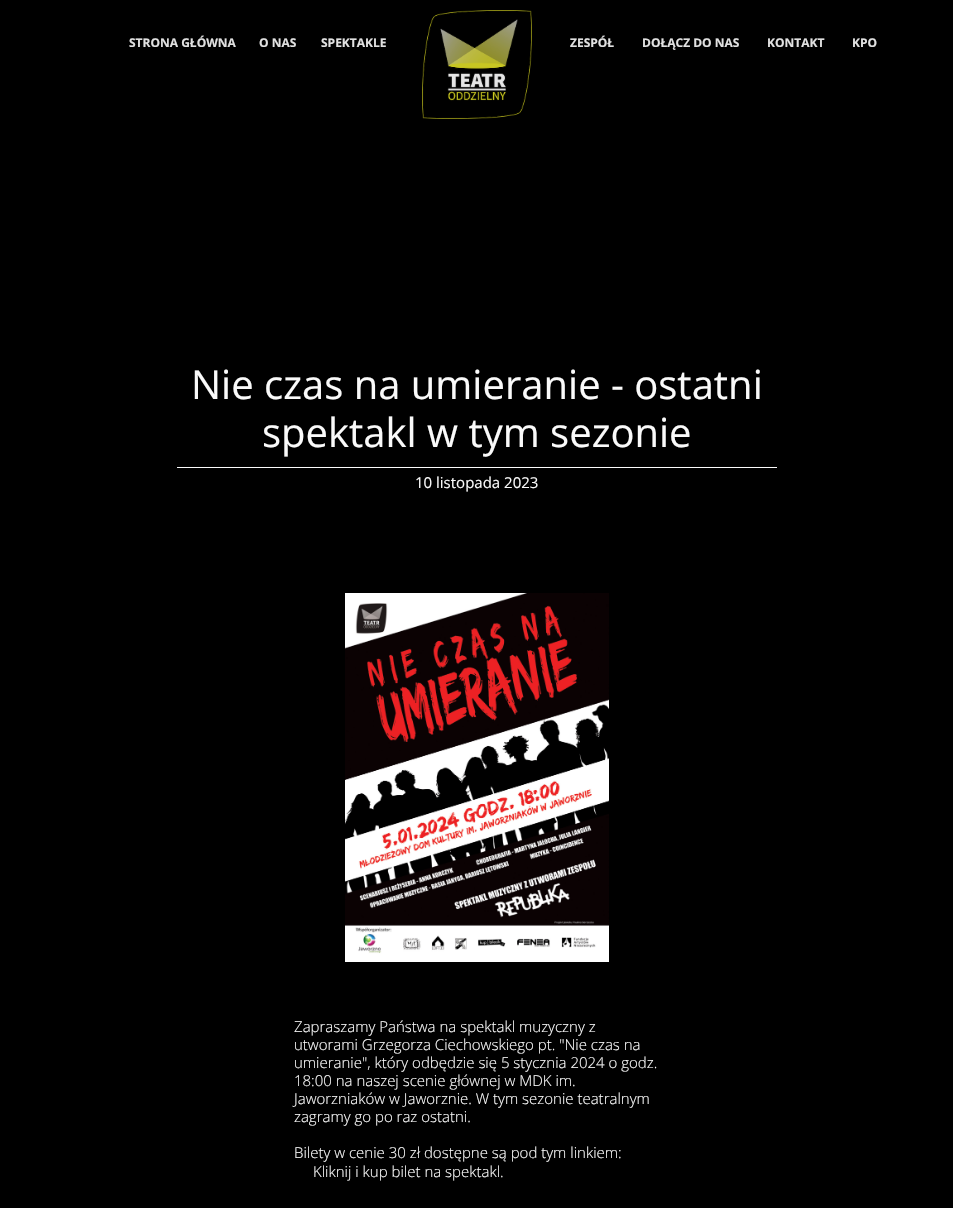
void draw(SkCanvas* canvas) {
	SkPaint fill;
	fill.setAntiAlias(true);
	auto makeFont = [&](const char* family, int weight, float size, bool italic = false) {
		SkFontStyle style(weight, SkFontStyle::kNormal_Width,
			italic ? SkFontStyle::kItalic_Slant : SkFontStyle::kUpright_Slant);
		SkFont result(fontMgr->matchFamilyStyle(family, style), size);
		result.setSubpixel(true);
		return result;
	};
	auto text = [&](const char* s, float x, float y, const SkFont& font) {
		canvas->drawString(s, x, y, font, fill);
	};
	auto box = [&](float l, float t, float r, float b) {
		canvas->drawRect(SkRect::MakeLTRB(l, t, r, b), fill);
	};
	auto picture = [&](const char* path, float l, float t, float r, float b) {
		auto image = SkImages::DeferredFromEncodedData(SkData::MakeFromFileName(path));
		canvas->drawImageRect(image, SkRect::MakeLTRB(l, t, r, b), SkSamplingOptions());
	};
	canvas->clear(0xFF000000);
	picture("image0.png", 422, 10, 532, 119);
	fill.setColor(0xFFFAFAFA);
	box(177, 467, 777, 468);
	picture("image1.png", 345, 593, 609, 962);
	auto font1 = makeFont("Open Sans", 700, 12);
	fill.setColor(0xFFE1E1E1);
	text("STRONA GŁÓWNA", 129, 47, font1);
	text("O NAS", 259, 47, font1);
	text("SPEKTAKLE", 321, 47, font1);
	text("ZESPÓŁ", 570, 47, font1);
	text("DOŁĄCZ DO NAS", 642, 47, font1);
	text("KONTAKT", 767, 47, font1);
	text("KPO", 852, 47, font1);
	auto font2 = makeFont("Open Sans", 400, 40);
	fill.setColor(0xFFFAFAFA);
	text("Nie czas na umieranie - ostatni", 191, 399, font2);
	text("spektakl w tym sezonie", 262, 447, font2);
	auto font3 = makeFont("Open Sans", 400, 15);
	text("10 listopada 2023", 415, 488, font3);
	auto font4 = makeFont("Open Sans", 300, 15);
	text("Zapraszamy Państwa na spektakl muzyczny z", 294, 1032, font4);
	text("utworami Grzegorza Ciechowskiego pt. \"Nie czas na", 294, 1050, font4);
	text("umieranie\", który odbędzie się 5 stycznia 2024 o godz.", 294, 1068, font4);
	text("18:00 na naszej scenie głównej w MDK im.", 294, 1086, font4);
	text("Jaworzniaków w Jaworznie. W tym sezonie teatralnym", 294, 1104, font4);
	text("zagramy go po raz ostatni.", 294, 1122, font4);
	text("Bilety w cenie 30 zł dostępne są pod tym linkiem:", 294, 1158, font4);
	text("Kliknij i kup bilet na spektakl.", 313, 1177, font4);
}
